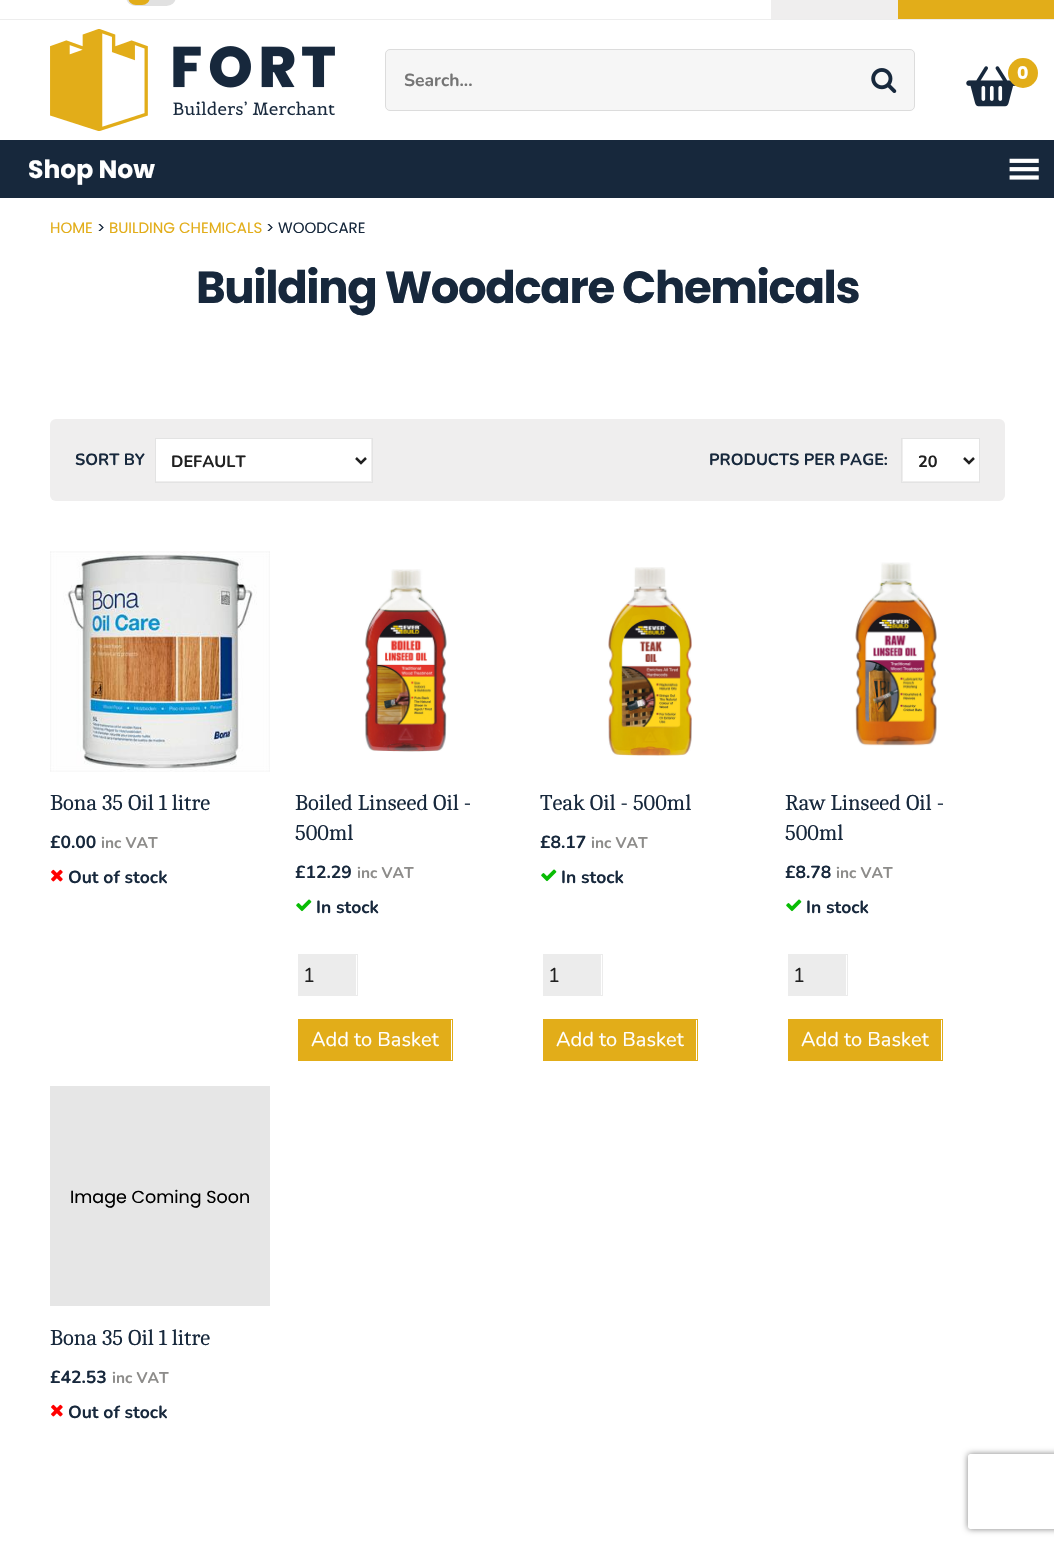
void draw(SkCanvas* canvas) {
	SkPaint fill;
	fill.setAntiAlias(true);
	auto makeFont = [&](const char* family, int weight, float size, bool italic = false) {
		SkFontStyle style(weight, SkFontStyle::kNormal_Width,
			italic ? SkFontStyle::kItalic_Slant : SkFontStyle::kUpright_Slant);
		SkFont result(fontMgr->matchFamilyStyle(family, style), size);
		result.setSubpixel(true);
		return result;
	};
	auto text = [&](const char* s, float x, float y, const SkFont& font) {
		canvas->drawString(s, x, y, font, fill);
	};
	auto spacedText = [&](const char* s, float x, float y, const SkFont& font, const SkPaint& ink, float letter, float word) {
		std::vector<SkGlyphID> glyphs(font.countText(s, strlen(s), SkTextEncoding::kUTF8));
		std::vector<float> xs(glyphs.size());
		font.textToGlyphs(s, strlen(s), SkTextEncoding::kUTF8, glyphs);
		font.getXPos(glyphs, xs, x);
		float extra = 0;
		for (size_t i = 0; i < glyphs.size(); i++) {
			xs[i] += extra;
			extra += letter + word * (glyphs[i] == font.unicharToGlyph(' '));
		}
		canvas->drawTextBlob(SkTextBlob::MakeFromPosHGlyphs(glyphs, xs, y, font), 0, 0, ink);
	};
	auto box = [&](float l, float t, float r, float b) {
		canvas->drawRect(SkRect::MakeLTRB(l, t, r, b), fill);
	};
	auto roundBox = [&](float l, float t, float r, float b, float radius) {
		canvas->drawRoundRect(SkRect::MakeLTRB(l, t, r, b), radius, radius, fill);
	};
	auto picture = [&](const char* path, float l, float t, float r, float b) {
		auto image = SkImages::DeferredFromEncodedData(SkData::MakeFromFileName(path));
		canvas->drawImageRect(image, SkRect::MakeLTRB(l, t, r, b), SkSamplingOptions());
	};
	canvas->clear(0xFFFFFFFF);
	fill.setColor(0xFFEDEDED);
	box(0, 19, 1054, 20);
	fill.setColor(0xFFE1E1E1);
	roundBox(126, -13, 176, 6, 12.5f);
	fill.setColor(0xFFE2AD19);
	roundBox(128, -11, 150, 5, 11);
	fill.setColor(0xFFEFEEEE);
	box(771, 0, 898, 19);
	fill.setColor(0xFFE2AD19);
	box(898, 0, 1054, 19);
	picture("image0.png", 50, 29, 335, 131);
	fill.setColor(0xFFF6F6F6);
	canvas->drawRoundRect(SkRect::MakeLTRB(385.5f, 49.5f, 914.5f, 110.5f), 4.5f, 4.5f, fill);
	fill.setStyle(SkPaint::kStroke_Style);
	fill.setStrokeWidth(1);
	fill.setColor(0xFFDCDCDC);
	canvas->drawRoundRect(SkRect::MakeLTRB(385.5f, 49.5f, 914.5f, 110.5f), 4.5f, 4.5f, fill);
	picture("image1.png", 871, 68, 897, 93);
	picture("image2.png", 966, 66, 1016, 107);
	fill.setStyle(SkPaint::kFill_Style);
	fill.setColor(0xFFE2AD19);
	canvas->drawCircle(1023, 73, 15, fill);
	fill.setColor(0xFF17283C);
	box(0, 140, 1054, 198);
	picture("image3.png", 1009, 158, 1039, 180);
	fill.setColor(0xFFEFEEEE);
	roundBox(50, 419, 1005, 501, 6);
	fill.setColor(0xFFFFFFFF);
	box(156, 439, 371, 481);
	fill.setStyle(SkPaint::kStroke_Style);
	fill.setColor(0xFFE3E3E3);
	canvas->drawRect(SkRect::MakeLTRB(155.5f, 438.5f, 372.5f, 482.5f), fill);
	fill.setStrokeWidth(2.5f);
	fill.setColor(0xFF202020);
	canvas->drawPath(SkPathBuilder().moveTo(356, 458).lineTo(361, 463).lineTo(366, 458).detach(), fill);
	fill.setStyle(SkPaint::kFill_Style);
	fill.setColor(0xFFFFFFFF);
	box(903, 439, 979, 481);
	fill.setStyle(SkPaint::kStroke_Style);
	fill.setStrokeWidth(1);
	fill.setColor(0xFFE3E3E3);
	canvas->drawRect(SkRect::MakeLTRB(901.5f, 438.5f, 979.5f, 482.5f), fill);
	fill.setStrokeWidth(2.5f);
	fill.setColor(0xFF202020);
	canvas->drawPath(SkPathBuilder().moveTo(964, 458).lineTo(969, 463).lineTo(974, 458).detach(), fill);
	picture("image4.png", 50, 551, 270, 772);
	picture("image5.png", 51, 869, 63, 882);
	picture("image6.png", 365, 569, 447, 752);
	picture("image7.png", 296, 899, 312, 912);
	fill.setStyle(SkPaint::kFill_Style);
	fill.setColor(0xFFECECEC);
	box(299, 955, 356, 995);
	fill.setStyle(SkPaint::kStroke_Style);
	fill.setStrokeWidth(1);
	canvas->drawRect(SkRect::MakeLTRB(298.5f, 954.5f, 357.5f, 995.5f), fill);
	fill.setStyle(SkPaint::kFill_Style);
	fill.setColor(0xFFE2AD19);
	box(299, 1020, 451, 1060);
	fill.setStyle(SkPaint::kStroke_Style);
	canvas->drawRect(SkRect::MakeLTRB(298.5f, 1019.5f, 452.5f, 1060.5f), fill);
	picture("image8.png", 608, 567, 692, 756);
	picture("image7.png", 541, 869, 557, 882);
	fill.setStyle(SkPaint::kFill_Style);
	fill.setColor(0xFFECECEC);
	box(544, 955, 601, 995);
	fill.setStyle(SkPaint::kStroke_Style);
	canvas->drawRect(SkRect::MakeLTRB(543.5f, 954.5f, 602.5f, 995.5f), fill);
	fill.setStyle(SkPaint::kFill_Style);
	fill.setColor(0xFFE2AD19);
	box(544, 1020, 696, 1060);
	fill.setStyle(SkPaint::kStroke_Style);
	canvas->drawRect(SkRect::MakeLTRB(543.5f, 1019.5f, 697.5f, 1060.5f), fill);
	picture("image9.png", 855, 562, 937, 746);
	picture("image7.png", 786, 899, 802, 912);
	fill.setStyle(SkPaint::kFill_Style);
	fill.setColor(0xFFECECEC);
	box(789, 955, 846, 995);
	fill.setStyle(SkPaint::kStroke_Style);
	canvas->drawRect(SkRect::MakeLTRB(788.5f, 954.5f, 847.5f, 995.5f), fill);
	fill.setStyle(SkPaint::kFill_Style);
	fill.setColor(0xFFE2AD19);
	box(789, 1020, 941, 1060);
	fill.setStyle(SkPaint::kStroke_Style);
	canvas->drawRect(SkRect::MakeLTRB(788.5f, 1019.5f, 942.5f, 1060.5f), fill);
	fill.setStyle(SkPaint::kFill_Style);
	fill.setColor(0xFFE6E6E6);
	box(50, 1086, 270, 1306);
	picture("image5.png", 51, 1404, 63, 1417);
	canvas->save();
	canvas->clipPath(SkPathBuilder(SkPathFillType::kEvenOdd).moveTo(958, 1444).lineTo(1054, 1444).lineTo(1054, 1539).lineTo(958, 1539).close().moveTo(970.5f, 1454).lineTo(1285.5f, 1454).cubicTo(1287, 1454, 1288, 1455, 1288, 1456.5f).lineTo(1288, 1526.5f).cubicTo(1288, 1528, 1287, 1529, 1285.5f, 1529).lineTo(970.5f, 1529).cubicTo(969, 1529, 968, 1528, 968, 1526.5f).lineTo(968, 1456.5f).cubicTo(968, 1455, 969, 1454, 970.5f, 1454).close().detach(), true);
	fill.setColor(0xFF808080);
	fill.setMaskFilter(SkMaskFilter::MakeBlur(kNormal_SkBlurStyle, 3));
	canvas->drawRoundRect(SkRect::MakeLTRB(968, 1454, 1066, 1529), 2.5f, 2.5f, fill);
	fill.setMaskFilter(nullptr);
	canvas->restore();
	auto font1 = makeFont("Nunito", 700, 17.5f);
	fill.setColor(0xFF757575);
	text("Search...", 404, 86, font1);
	auto font2 = makeFont("Poppins", 700, 17.5f);
	fill.setColor(0xFFFFFFFF);
	text("0", 1017, 79, font2);
	auto font3 = makeFont("Poppins", 700, 25);
	text("Shop Now", 28, 178, font3);
	auto font4 = makeFont("Poppins", 400, 15);
	fill.setColor(0xFFE2AD19);
	text("HOME", 50, 233, font4);
	fill.setColor(0xFF17283C);
	text(">", 97, 233, font4);
	fill.setColor(0xFFE2AD19);
	text("BUILDING CHEMICALS", 109, 233, font4);
	fill.setColor(0xFF17283C);
	text("> WOODCARE", 266, 233, font4);
	auto font5 = makeFont("Poppins", 700, 45);
	spacedText("Building Woodcare Chemicals", 196, 303, font5, fill, -1.35f, 0);
	auto font6 = makeFont("Nunito", 700, 16.25f);
	text("SORT BY", 75, 465, font6);
	fill.setColor(0xFF202020);
	text("DEFAULT", 171, 467, font6);
	fill.setColor(0xFF17283C);
	text("PRODUCTS PER PAGE:", 709, 465, font6);
	fill.setColor(0xFF202020);
	text("20", 918, 467, font6);
	auto font7 = makeFont("Caladea", 400, 22.5f);
	fill.setColor(0xFF17283C);
	text("Bona 35 Oil 1 litre", 50, 810, font7);
	text("£0.00", 50, 848, font1);
	auto font8 = makeFont("Nunito", 700, 15.5f);
	fill.setColor(0xFF8D8C8A);
	text("inc VAT", 101, 848, font8);
	fill.setColor(0xFF17283C);
	text("Out of stock", 68, 883, font1);
	text("Boiled Linseed Oil -", 295, 810, font7);
	text("500ml", 295, 840, font7);
	text("£12.29", 295, 878, font1);
	fill.setColor(0xFF8D8C8A);
	text("inc VAT", 357, 878, font8);
	fill.setColor(0xFF17283C);
	text("In stock", 316, 913, font1);
	auto font9 = makeFont("Nunito", 400, 20);
	fill.setColor(0xFF202020);
	text("1", 303, 982, font9);
	fill.setColor(0xFFFFFFFF);
	text("Add to Basket", 311, 1046, font9);
	fill.setColor(0xFF17283C);
	text("Teak Oil - 500ml", 540, 810, font7);
	text("£8.17", 540, 848, font1);
	fill.setColor(0xFF8D8C8A);
	text("inc VAT", 591, 848, font8);
	fill.setColor(0xFF17283C);
	text("In stock", 561, 883, font1);
	fill.setColor(0xFF202020);
	text("1", 548, 982, font9);
	fill.setColor(0xFFFFFFFF);
	text("Add to Basket", 556, 1046, font9);
	fill.setColor(0xFF17283C);
	text("Raw Linseed Oil -", 785, 810, font7);
	text("500ml", 785, 840, font7);
	text("£8.78", 785, 878, font1);
	fill.setColor(0xFF8D8C8A);
	text("inc VAT", 836, 878, font8);
	fill.setColor(0xFF17283C);
	text("In stock", 806, 913, font1);
	fill.setColor(0xFF202020);
	text("1", 793, 982, font9);
	fill.setColor(0xFFFFFFFF);
	text("Add to Basket", 801, 1046, font9);
	auto font10 = makeFont("Poppins", 400, 17.5f);
	fill.setColor(0xFF000000);
	text("Image Coming Soon", 70, 1203, font10);
	fill.setColor(0xFF17283C);
	text("Bona 35 Oil 1 litre", 50, 1345, font7);
	text("£42.53", 50, 1383, font1);
	fill.setColor(0xFF8D8C8A);
	text("inc VAT", 112, 1383, font8);
	fill.setColor(0xFF17283C);
	text("Out of stock", 68, 1418, font1);
}
